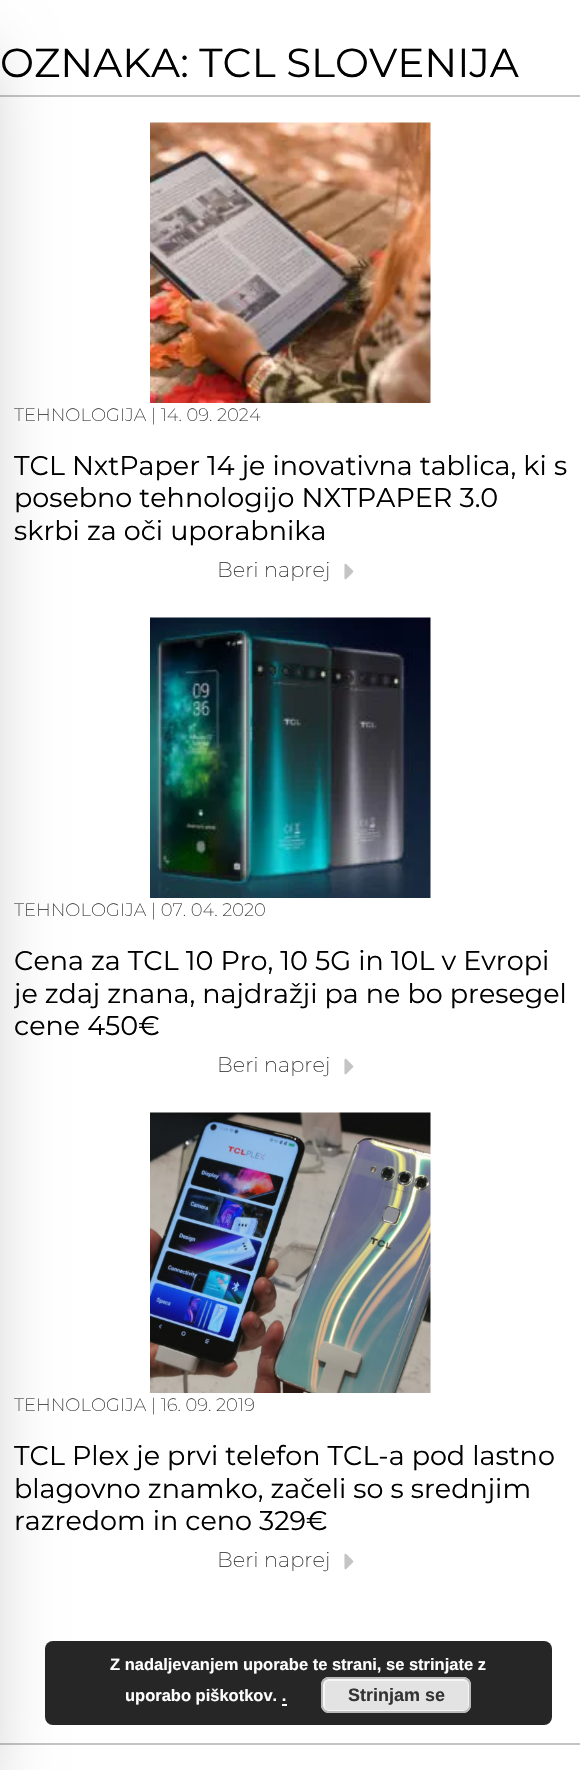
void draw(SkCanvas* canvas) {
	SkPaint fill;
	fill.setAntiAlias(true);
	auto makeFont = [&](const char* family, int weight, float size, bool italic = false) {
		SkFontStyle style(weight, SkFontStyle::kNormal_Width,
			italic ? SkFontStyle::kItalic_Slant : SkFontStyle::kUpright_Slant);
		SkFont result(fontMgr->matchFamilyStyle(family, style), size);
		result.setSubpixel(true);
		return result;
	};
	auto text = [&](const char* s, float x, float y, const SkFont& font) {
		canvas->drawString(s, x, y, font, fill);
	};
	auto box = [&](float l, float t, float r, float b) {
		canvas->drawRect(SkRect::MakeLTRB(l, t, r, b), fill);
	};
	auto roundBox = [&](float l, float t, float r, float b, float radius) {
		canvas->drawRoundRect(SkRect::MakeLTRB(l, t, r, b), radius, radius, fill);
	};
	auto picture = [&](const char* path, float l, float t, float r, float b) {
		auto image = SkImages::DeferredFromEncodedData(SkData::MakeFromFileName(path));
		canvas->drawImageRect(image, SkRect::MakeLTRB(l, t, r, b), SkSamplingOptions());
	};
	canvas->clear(0xFFFFFFFF);
	fill.setColor(0xFFC4C4C4);
	box(0, 95, 580, 97);
	box(0, 1743, 580, 1745);
	fill.setColor(0xFF262626);
	roundBox(45, 1641, 552, 1725, 8);
	fill.setColor(0x40000000);
	fill.setMaskFilter(SkMaskFilter::MakeBlur(kNormal_SkBlurStyle, 37.5f));
	canvas->drawRect(SkRect::MakeLTRB(-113, 56, -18, 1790), fill);
	fill.setMaskFilter(nullptr);
	picture("image0.png", 150, 122, 431, 403);
	picture("image1.png", 344, 563, 354, 580);
	picture("image2.png", 150, 617, 431, 898);
	picture("image1.png", 344, 1058, 354, 1075);
	picture("image3.png", 150, 1112, 431, 1393);
	picture("image1.png", 344, 1553, 354, 1570);
	fill.setColor(0xFFE3E3E3);
	roundBox(321, 1677, 471, 1713, 8);
	fill.setStyle(SkPaint::kStroke_Style);
	fill.setStrokeWidth(2);
	fill.setColor(0xFFF6F6F6);
	canvas->drawRoundRect(SkRect::MakeLTRB(324, 1680, 469, 1711), 5, 5, fill);
	fill.setColor(0xFFBBBBBB);
	canvas->drawRoundRect(SkRect::MakeLTRB(322, 1678, 470, 1712), 7, 7, fill);
	fill.setStyle(SkPaint::kFill_Style);
	fill.setColor(0xFFFFFFFF);
	box(282, 1704, 287, 1706);
	auto font1 = makeFont("Montserrat", 400, 40.5f);
	fill.setColor(0xFF000000);
	text("OZNAKA: TCL SLOVENIJA", 0, 77, font1);
	auto font2 = makeFont("Montserrat", 200, 18);
	fill.setColor(0xFF333333);
	text("TEHNOLOGIJA | 14. 09. 2024", 14, 421, font2);
	auto font3 = makeFont("Montserrat", 400, 27);
	fill.setColor(0xFF000000);
	text("TCL NxtPaper 14 je inovativna tablica, ki s", 14, 475, font3);
	text("posebno tehnologijo NXTPAPER 3.0", 14, 507, font3);
	text("skrbi za oči uporabnika", 14, 540, font3);
	auto font4 = makeFont("Montserrat", 200, 21);
	fill.setColor(0xFF333333);
	text("Beri naprej", 217, 577, font4);
	text("TEHNOLOGIJA | 07. 04. 2020", 14, 916, font2);
	fill.setColor(0xFF000000);
	text("Cena za TCL 10 Pro, 10 5G in 10L v Evropi", 14, 970, font3);
	canvas->save();
	canvas->clipRect(SkRect::MakeLTRB(14, 947, 567, 1044));
	text("je zdaj znana, najdražji pa ne bo presegel", 14, 1003, font3);
	canvas->restore();
	text("cene 450€", 14, 1035, font3);
	fill.setColor(0xFF333333);
	text("Beri naprej", 217, 1072, font4);
	text("TEHNOLOGIJA | 16. 09. 2019", 14, 1411, font2);
	fill.setColor(0xFF000000);
	text("TCL Plex je prvi telefon TCL-a pod lastno", 14, 1465, font3);
	text("blagovno znamko, začeli so s srednjim", 14, 1498, font3);
	text("razredom in ceno 329€", 14, 1530, font3);
	fill.setColor(0xFF333333);
	text("Beri naprej", 217, 1567, font4);
	auto font5 = makeFont("Liberation Sans", 700, 16.5f);
	fill.setColor(0xFFFFFFFF);
	text("Z nadaljevanjem uporabe te strani, se strinjate z", 110, 1670, font5);
	text("uporabo piškotkov. .", 125, 1701, font5);
	auto font6 = makeFont("Liberation Sans", 700, 18);
	fill.setColor(0xFF333333);
	text("Strinjam se", 348, 1701, font6);
}
